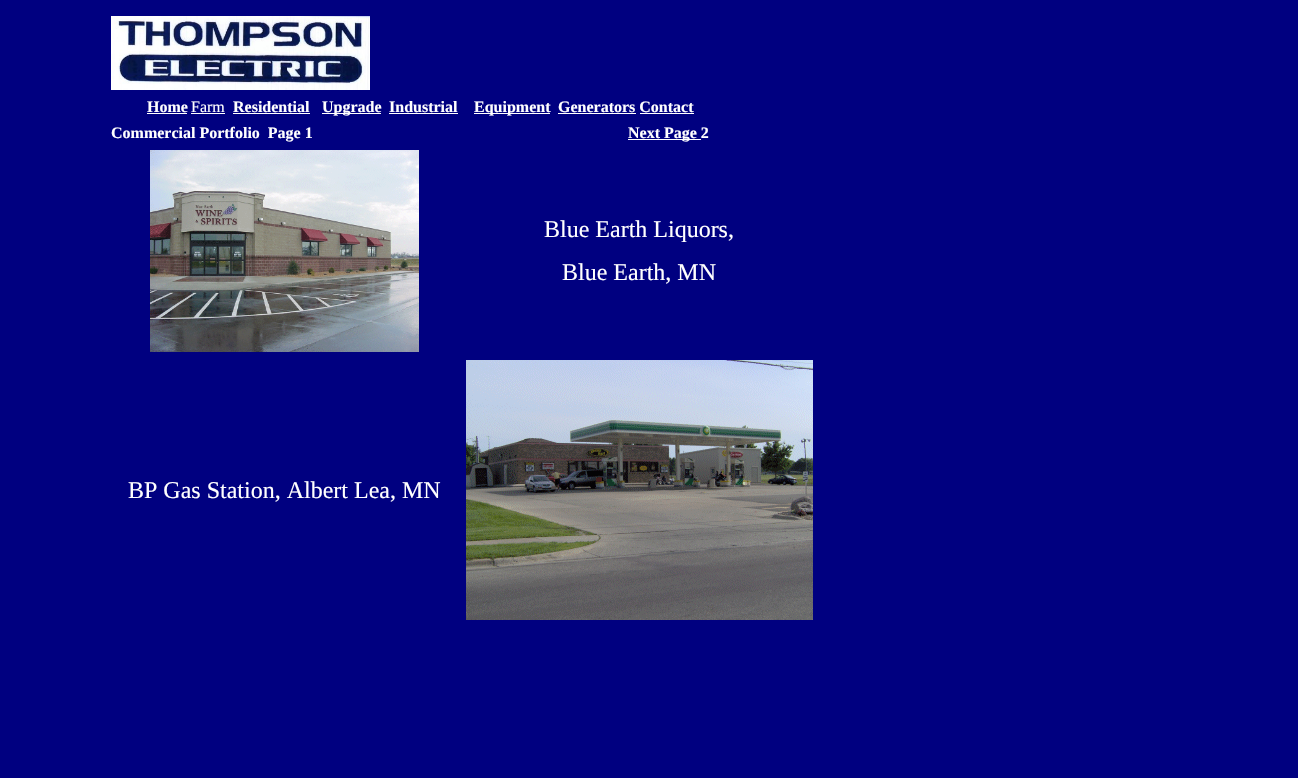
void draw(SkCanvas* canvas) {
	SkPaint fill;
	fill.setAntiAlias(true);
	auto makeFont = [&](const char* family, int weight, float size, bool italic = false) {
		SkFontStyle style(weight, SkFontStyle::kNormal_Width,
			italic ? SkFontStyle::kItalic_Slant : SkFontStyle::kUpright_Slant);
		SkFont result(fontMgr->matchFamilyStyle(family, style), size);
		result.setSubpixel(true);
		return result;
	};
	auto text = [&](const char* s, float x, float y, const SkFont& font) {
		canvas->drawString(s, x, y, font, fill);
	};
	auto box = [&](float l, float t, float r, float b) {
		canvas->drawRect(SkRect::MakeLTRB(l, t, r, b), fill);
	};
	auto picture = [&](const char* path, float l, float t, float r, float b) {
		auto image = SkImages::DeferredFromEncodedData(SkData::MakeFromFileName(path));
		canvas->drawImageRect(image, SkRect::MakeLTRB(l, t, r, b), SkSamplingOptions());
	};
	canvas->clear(0xFF000080);
	picture("image0.png", 111, 16, 370, 90);
	fill.setColor(0xFFFFFFFF);
	box(147, 113, 187, 114);
	box(191, 113, 225, 114);
	box(233, 113, 310, 114);
	box(322, 113, 381, 114);
	box(389, 113, 458, 114);
	box(474, 113, 550, 114);
	box(558, 113, 636, 114);
	box(640, 113, 694, 114);
	box(628, 139, 701, 140);
	picture("image1.png", 150, 150, 419, 352);
	picture("image2.png", 466, 360, 813, 620);
	auto font1 = makeFont("Liberation Serif", 700, 16);
	text("Home", 147, 112, font1);
	auto font2 = makeFont("Liberation Serif", 400, 16);
	text("Farm", 191, 112, font2);
	text("Residential", 233, 112, font1);
	text("Upgrade", 322, 112, font1);
	text("Industrial", 389, 112, font1);
	text("Equipment", 474, 112, font1);
	text("Generators Contact", 558, 112, font1);
	text("Commercial Portfolio  Page 1", 111, 138, font1);
	text("Next Page 2", 628, 138, font1);
	auto font3 = makeFont("Liberation Serif", 400, 24);
	text("Blue Earth Liquors,", 544, 237, font3);
	text("Blue Earth, MN", 562, 280, font3);
	text("BP Gas Station, Albert Lea, MN", 128, 498, font3);
}
